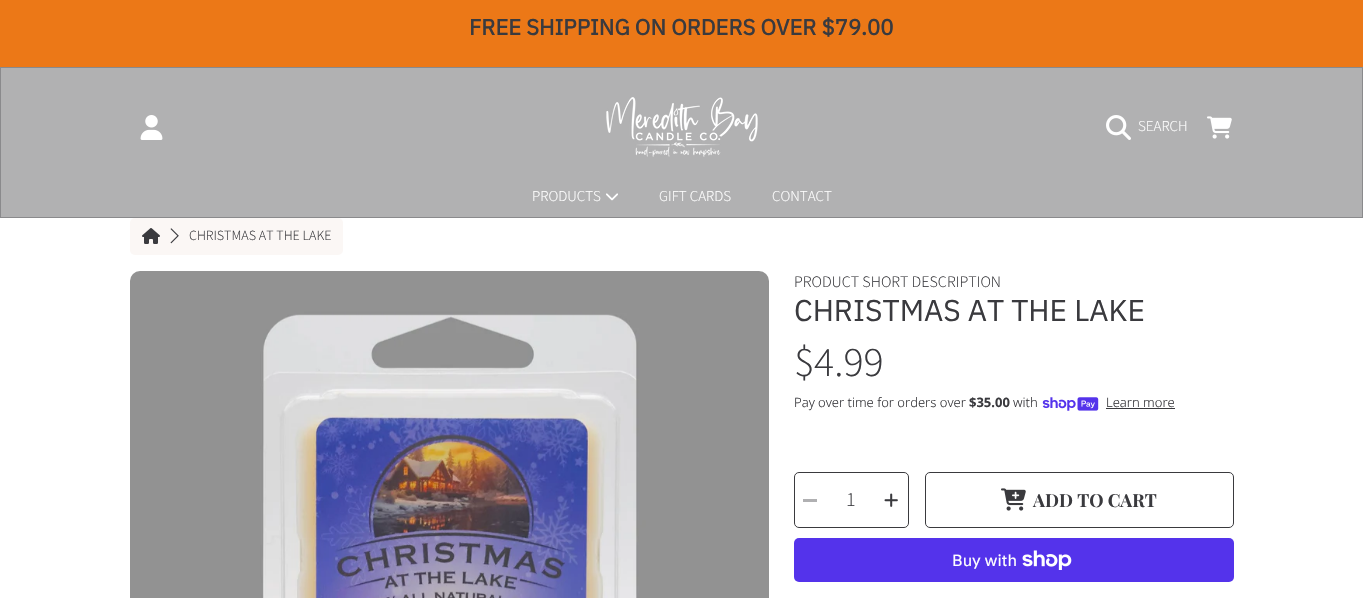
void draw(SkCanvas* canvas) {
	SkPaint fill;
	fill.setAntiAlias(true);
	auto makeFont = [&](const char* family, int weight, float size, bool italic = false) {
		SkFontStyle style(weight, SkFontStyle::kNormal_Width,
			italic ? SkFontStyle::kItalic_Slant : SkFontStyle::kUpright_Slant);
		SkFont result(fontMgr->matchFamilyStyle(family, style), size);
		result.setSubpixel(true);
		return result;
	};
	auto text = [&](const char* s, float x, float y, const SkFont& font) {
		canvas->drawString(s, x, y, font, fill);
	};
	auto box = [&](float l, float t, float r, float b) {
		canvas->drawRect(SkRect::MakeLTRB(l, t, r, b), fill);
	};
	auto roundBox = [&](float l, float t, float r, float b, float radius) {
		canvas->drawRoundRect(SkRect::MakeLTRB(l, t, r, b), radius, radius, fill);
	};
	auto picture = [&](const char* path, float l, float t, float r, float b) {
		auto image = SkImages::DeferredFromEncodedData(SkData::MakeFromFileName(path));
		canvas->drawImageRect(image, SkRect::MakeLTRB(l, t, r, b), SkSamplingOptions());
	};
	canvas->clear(0xFFFFFFFF);
	fill.setColor(0xFFEC7817);
	box(0, 0, 1363, 67);
	fill.setColor(0xFFB1B1B2);
	canvas->drawRect(SkRect::MakeLTRB(0.5f, 67.5f, 1362.5f, 217.5f), fill);
	fill.setStyle(SkPaint::kStroke_Style);
	fill.setStrokeWidth(1);
	fill.setColor(0xFF8A8A8C);
	canvas->drawRect(SkRect::MakeLTRB(0.5f, 67.5f, 1362.5f, 217.5f), fill);
	picture("image0.png", 140, 115, 163, 140);
	picture("image1.png", 606, 97, 758, 157);
	picture("image2.png", 1106, 115, 1131, 140);
	picture("image3.png", 1207, 116, 1232, 139);
	picture("image4.png", 606, 193, 618, 201);
	fill.setStyle(SkPaint::kFill_Style);
	fill.setColor(0xFFFBF7F5);
	roundBox(130, 218, 343, 255, 5);
	picture("image5.png", 142, 228, 160, 244);
	picture("image6.png", 170, 228, 179, 244);
	picture("image7.png", 130, 271, 769, 598);
	picture("image8.png", 1042, 397, 1099, 411);
	fill.setColor(0xFF3A3A3E);
	box(1106, 408, 1175, 409);
	fill.setStyle(SkPaint::kStroke_Style);
	canvas->drawRoundRect(SkRect::MakeLTRB(794.5f, 472.5f, 908.5f, 527.5f), 4.5f, 4.5f, fill);
	fill.setStyle(SkPaint::kFill_Style);
	fill.setColor(0xFFB0B0B2);
	box(803, 499, 817, 502);
	picture("image9.png", 884, 493, 898, 507);
	fill.setStyle(SkPaint::kStroke_Style);
	fill.setColor(0xFF3A3A3E);
	canvas->drawRoundRect(SkRect::MakeLTRB(925.5f, 472.5f, 1233.5f, 527.5f), 4.5f, 4.5f, fill);
	picture("image10.png", 1001, 488, 1026, 511);
	fill.setStyle(SkPaint::kFill_Style);
	fill.setColor(0xFF5433EB);
	roundBox(794, 538, 1234, 582, 5);
	picture("image11.png", 1022, 550, 1072, 570);
	auto font1 = makeFont("IBM Plex Sans", 700, 22);
	fill.setColor(0xFF3A3A3E);
	text("FREE SHIPPING ON ORDERS OVER $79.00", 469, 35, font1);
	auto font2 = makeFont("Source Sans Pro", 300, 15);
	fill.setColor(0xFFFFFFFF);
	text("SEARCH", 1138, 131, font2);
	text("PRODUCTS", 532, 201, font2);
	text("GIFT CARDS", 659, 201, font2);
	text("CONTACT", 772, 201, font2);
	auto font3 = makeFont("Source Sans Pro", 300, 14);
	fill.setColor(0xFF3A3A3E);
	text("CHRISTMAS AT THE LAKE", 189, 240, font3);
	auto font4 = makeFont("Source Sans Pro", 300, 16);
	text("PRODUCT SHORT DESCRIPTION", 794, 287, font4);
	auto font5 = makeFont("IBM Plex Sans", 400, 30);
	text("CHRISTMAS AT THE LAKE", 794, 321, font5);
	auto font6 = makeFont("Source Sans Pro", 300, 42);
	text("$4.99", 794, 376, font6);
	auto font7 = makeFont("Noto Sans", 300, 13);
	text("Pay over time for orders over", 794, 407, font7);
	auto font8 = makeFont("Noto Sans", 700, 13);
	text("$35.00", 969, 407, font8);
	text("with", 1013, 407, font7);
	text("Learn more", 1106, 407, font7);
	auto font9 = makeFont("Source Sans Pro", 300, 20);
	text("1", 846, 506, font9);
	auto font10 = makeFont("Playfair Display", 700, 18);
	text("ADD TO CART", 1033, 507, font10);
	auto font11 = makeFont("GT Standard", 400, 16);
	fill.setColor(0xFFFFFFFF);
	text("Buy with", 952, 566, font11);
}
